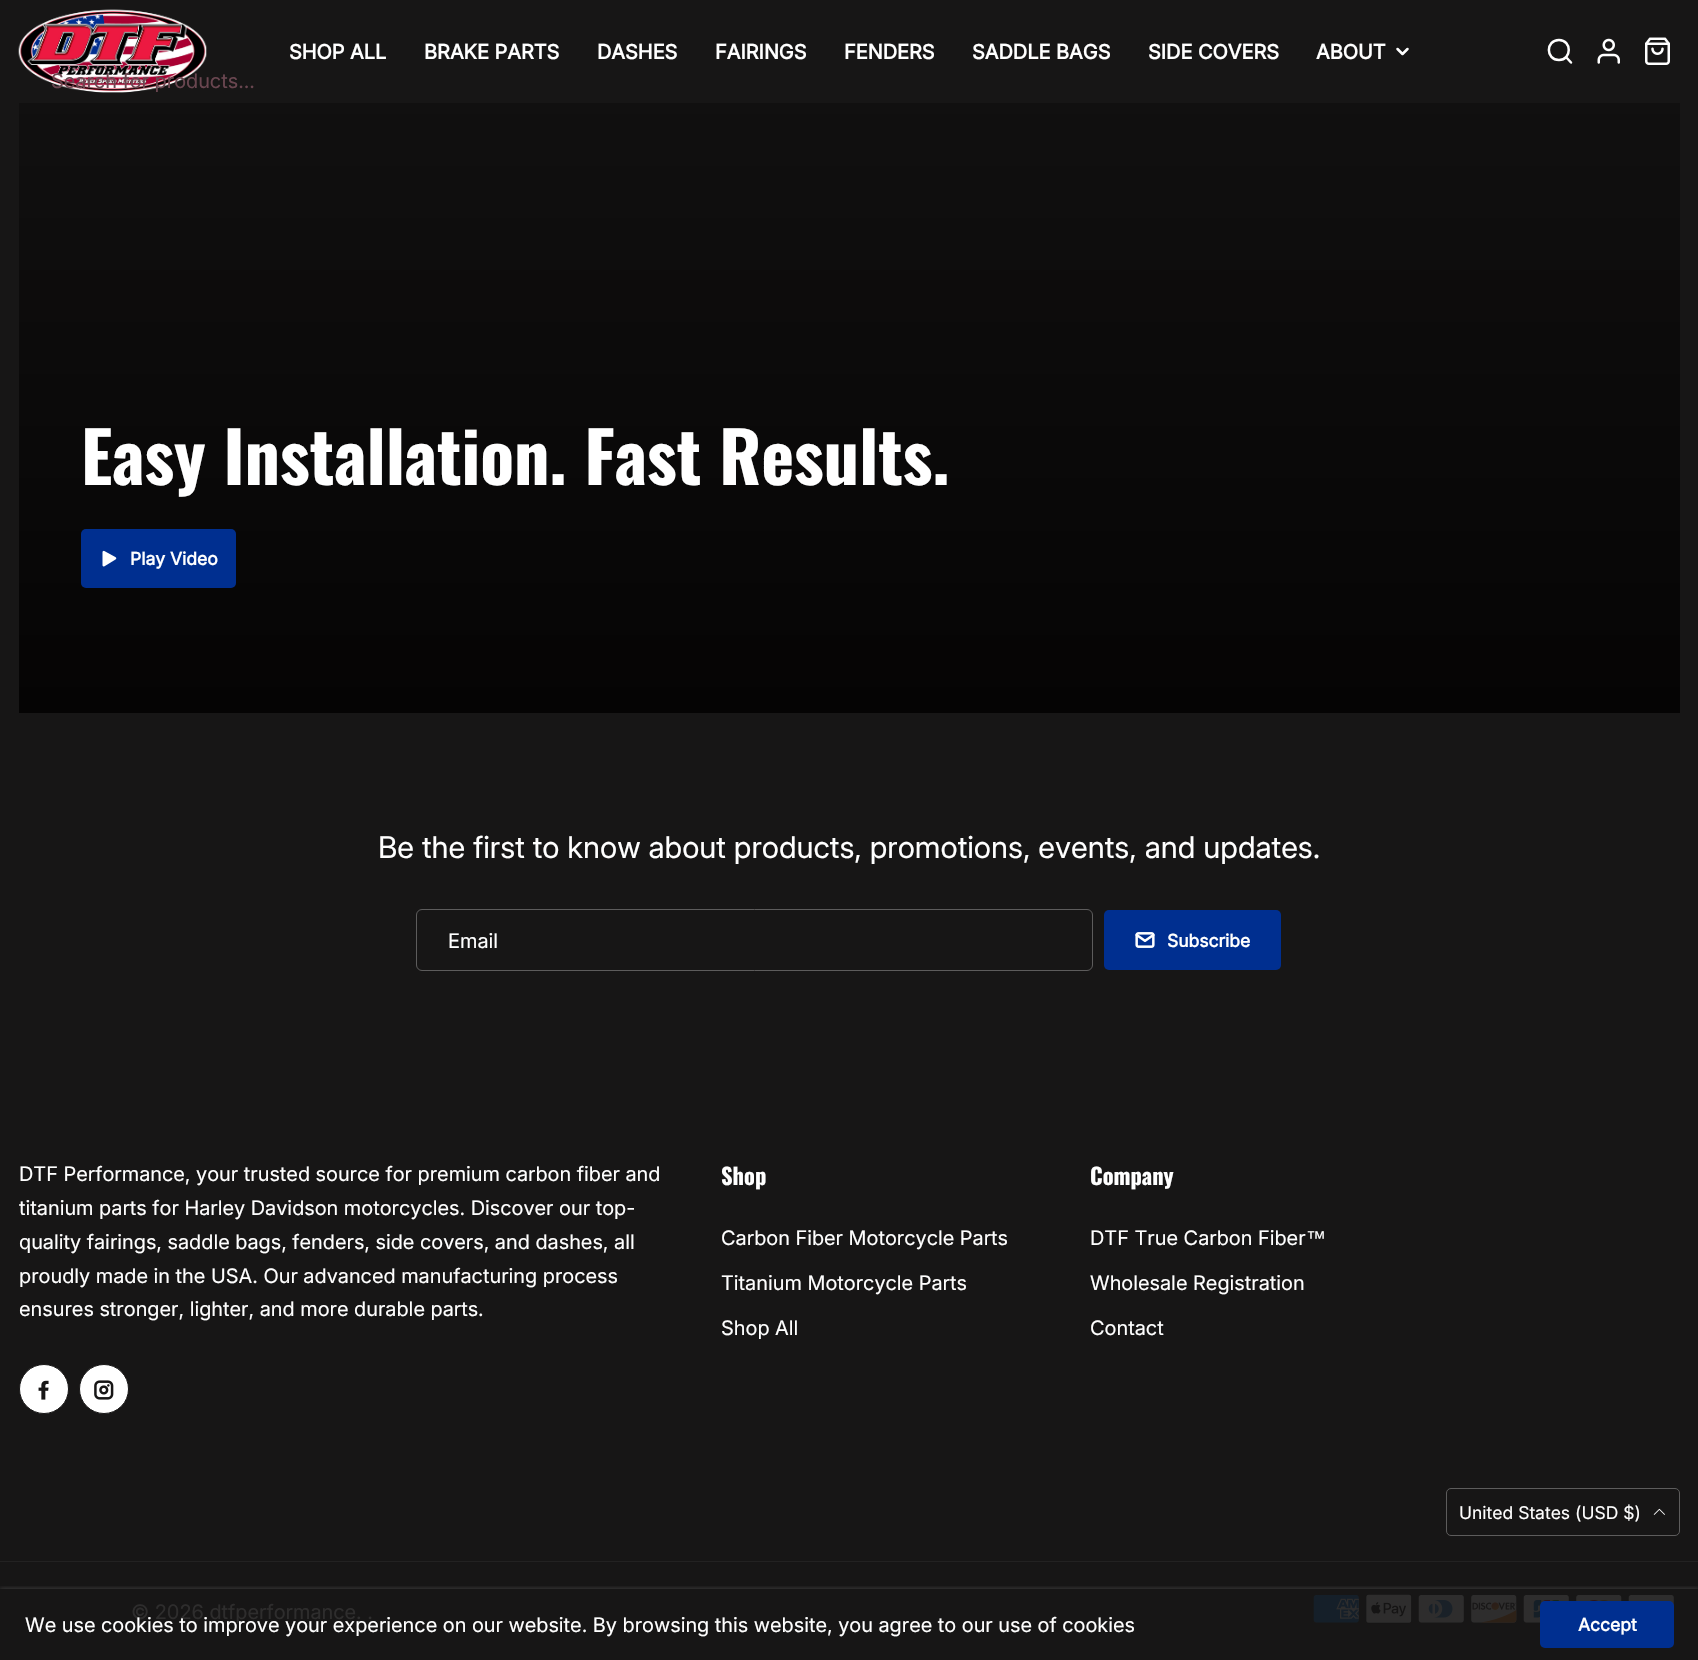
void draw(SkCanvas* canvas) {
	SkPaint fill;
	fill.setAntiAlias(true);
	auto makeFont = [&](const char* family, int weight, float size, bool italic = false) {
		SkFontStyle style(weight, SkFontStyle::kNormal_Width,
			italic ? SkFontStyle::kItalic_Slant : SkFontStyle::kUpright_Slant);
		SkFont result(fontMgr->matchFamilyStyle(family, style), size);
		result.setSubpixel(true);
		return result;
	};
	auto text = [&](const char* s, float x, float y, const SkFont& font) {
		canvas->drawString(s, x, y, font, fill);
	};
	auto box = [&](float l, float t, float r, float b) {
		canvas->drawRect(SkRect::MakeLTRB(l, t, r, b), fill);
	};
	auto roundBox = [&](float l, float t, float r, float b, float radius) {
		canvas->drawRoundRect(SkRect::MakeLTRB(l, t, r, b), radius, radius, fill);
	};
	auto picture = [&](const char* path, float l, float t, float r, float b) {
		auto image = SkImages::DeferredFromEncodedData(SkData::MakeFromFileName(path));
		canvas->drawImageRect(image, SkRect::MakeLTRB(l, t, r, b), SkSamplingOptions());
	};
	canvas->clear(0xFF171616);
	picture("image0.png", 18, 9, 207, 93);
	fill.setStyle(SkPaint::kStroke_Style);
	fill.setStrokeWidth(2.5f);
	fill.setStrokeCap(SkPaint::kRound_Cap);
	fill.setStrokeJoin(SkPaint::kRound_Join);
	fill.setColor(0xFFFFFFFF);
	canvas->drawPath(SkPathBuilder().moveTo(1397.5f, 49).lineTo(1402.5f, 54).lineTo(1407.5f, 49).detach(), fill);
	canvas->drawPath(SkPathBuilder().moveTo(1559, 60).cubicTo(1572, 60, 1572, 40, 1559, 40).cubicTo(1545.5f, 40, 1545.5f, 60, 1559, 60).close().moveTo(1571, 62.5f).lineTo(1566, 57).detach(), fill);
	picture("image1.png", 1597, 38, 1620, 64);
	picture("image2.png", 1645, 37, 1670, 65);
	fill.setStyle(SkPaint::kFill_Style);
	{
		const SkColor colors[] = {0xFF171616, 0xFF050404};
		const float stops[] = {0, 1};
		const SkPoint ends[] = {{849, -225}, {849, 713}};
		fill.setShader(SkGradientShader::MakeLinear(ends, colors, stops, 2, SkTileMode::kClamp));
		fill.setAlpha(255);
	}
	box(19, 103, 1680, 713);
	fill.setShader(nullptr);
	fill.setColor(0xFF002F90);
	roundBox(81, 529, 236, 588, 5);
	picture("image3.png", 102, 550, 117, 567);
	fill.setStyle(SkPaint::kStroke_Style);
	fill.setStrokeWidth(1);
	fill.setStrokeCap(SkPaint::kButt_Cap);
	fill.setStrokeJoin(SkPaint::kMiter_Join);
	fill.setColor(0xFF5D5C5C);
	canvas->drawRoundRect(SkRect::MakeLTRB(416.5f, 909.5f, 1092.5f, 970.5f), 5.5f, 5.5f, fill);
	fill.setStyle(SkPaint::kFill_Style);
	fill.setColor(0xFF002F90);
	roundBox(1104, 910, 1281, 970, 5);
	picture("image4.png", 1135, 932, 1155, 948);
	fill.setColor(0xFFFFFFFF);
	canvas->drawCircle(44, 1389, 24.5f, fill);
	fill.setStyle(SkPaint::kStroke_Style);
	fill.setColor(0xFF171616);
	canvas->drawCircle(44, 1389, 24.5f, fill);
	picture("image5.png", 38, 1380, 49, 1400);
	fill.setStyle(SkPaint::kFill_Style);
	fill.setColor(0xFFFFFFFF);
	canvas->drawCircle(104, 1389, 24.5f, fill);
	fill.setStyle(SkPaint::kStroke_Style);
	fill.setColor(0xFF171616);
	canvas->drawCircle(104, 1389, 24.5f, fill);
	picture("image6.png", 94, 1380, 114, 1400);
	fill.setColor(0xFF5D5C5C);
	canvas->drawRoundRect(SkRect::MakeLTRB(1446.5f, 1488.5f, 1679.5f, 1535.5f), 4.5f, 4.5f, fill);
	picture("image7.png", 1653, 1508, 1665, 1515);
	fill.setStyle(SkPaint::kFill_Style);
	fill.setColor(0xFF232222);
	box(0, 1561, 1698, 1562);
	picture("image8.png", 1313, 1595, 1359, 1623);
	picture("image9.png", 1365, 1594, 1413, 1624);
	picture("image10.png", 1418, 1595, 1464, 1623);
	picture("image11.png", 1471, 1595, 1517, 1623);
	picture("image12.png", 1523, 1595, 1569, 1623);
	picture("image13.png", 1576, 1595, 1622, 1601);
	picture("image14.png", 1628, 1595, 1674, 1606);
	canvas->save();
	canvas->clipRect(SkRect::MakeLTRB(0, 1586, 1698, 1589));
	fill.setColor(0x33FFFFFF);
	fill.setMaskFilter(SkMaskFilter::MakeBlur(kNormal_SkBlurStyle, 2.5f));
	canvas->drawRect(SkRect::MakeLTRB(0, 1589, 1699, 1660), fill);
	fill.setMaskFilter(nullptr);
	canvas->restore();
	fill.setColor(0xFF002F90);
	roundBox(1540, 1601, 1674, 1648, 5);
	auto font1 = makeFont("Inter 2", 700, 20);
	fill.setColor(0xFFFFFFFF);
	text("SHOP ALL", 289, 59, font1);
	text("BRAKE PARTS", 424, 59, font1);
	text("DASHES", 597, 59, font1);
	text("FAIRINGS", 715, 59, font1);
	text("FENDERS", 844, 59, font1);
	text("SADDLE BAGS", 972, 59, font1);
	text("SIDE COVERS", 1148, 59, font1);
	text("ABOUT", 1316, 59, font1);
	auto font2 = makeFont("Inter 2", 400, 20);
	fill.setColor(0xFF6A4650);
	text("Search for products...", 51, 88, font2);
	auto font3 = makeFont("Oswald", 700, 70);
	fill.setColor(0xFFFFFFFF);
	text("Easy Installation. Fast Results.", 81, 485, font3);
	auto font4 = makeFont("Inter", 700, 17.5f);
	text("Play Video", 130, 565, font4);
	auto font5 = makeFont("Inter", 400, 30);
	text("Be the first to know about products, promotions, events, and updates.", 378, 858, font5);
	text("Email", 448, 948, font2);
	text("Subscribe", 1167, 947, font4);
	text("DTF Performance, your trusted source for premium carbon fiber and", 19, 1181, font2);
	text("titanium parts for Harley Davidson motorcycles. Discover our top-", 19, 1215, font2);
	text("quality fairings, saddle bags, fenders, side covers, and dashes, all", 19, 1249, font2);
	text("proudly made in the USA. Our advanced manufacturing process", 19, 1283, font2);
	text("ensures stronger, lighter, and more durable parts.", 19, 1316, font2);
	auto font6 = makeFont("Oswald", 700, 22.5f);
	text("Shop", 721, 1185, font6);
	text("Carbon Fiber Motorcycle Parts", 721, 1245, font2);
	text("Titanium Motorcycle Parts", 721, 1290, font2);
	text("Shop All", 721, 1335, font2);
	text("Company", 1090, 1185, font6);
	text("DTF True Carbon Fiber", 1090, 1245, font2);
	auto font7 = makeFont("Liberation Sans", 400, 20);
	text("™", 1306, 1245, font7);
	text("Wholesale Registration", 1090, 1290, font2);
	text("Contact", 1090, 1335, font2);
	auto font8 = makeFont("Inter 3", 400, 17.5f);
	text("United States (USD $)", 1459, 1519, font8);
	fill.setColor(0xFF2E2D2D);
	text("© 2026 dtfperformance. .", 131, 1619, font2);
	fill.setColor(0xFFFFFFFF);
	text("We use cookies to improve your experience on our website. By browsing this website, you agree to our use of cookies", 25, 1632, font2);
	text("Accept", 1578, 1631, font4);
}
